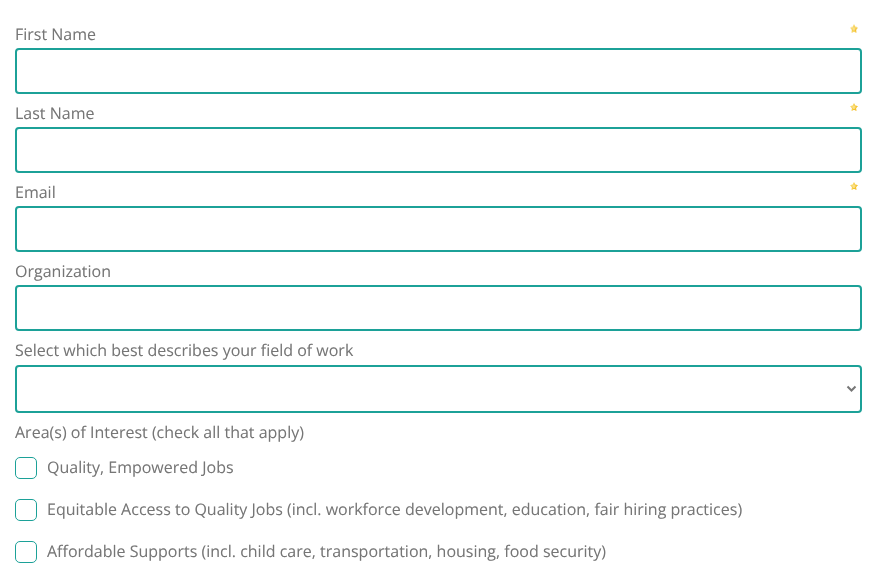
void draw(SkCanvas* canvas) {
	SkPaint fill;
	fill.setAntiAlias(true);
	auto makeFont = [&](const char* family, int weight, float size, bool italic = false) {
		SkFontStyle style(weight, SkFontStyle::kNormal_Width,
			italic ? SkFontStyle::kItalic_Slant : SkFontStyle::kUpright_Slant);
		SkFont result(fontMgr->matchFamilyStyle(family, style), size);
		result.setSubpixel(true);
		return result;
	};
	auto text = [&](const char* s, float x, float y, const SkFont& font) {
		canvas->drawString(s, x, y, font, fill);
	};
	auto picture = [&](const char* path, float l, float t, float r, float b) {
		auto image = SkImages::DeferredFromEncodedData(SkData::MakeFromFileName(path));
		canvas->drawImageRect(image, SkRect::MakeLTRB(l, t, r, b), SkSamplingOptions());
	};
	canvas->clear(0xFFFFFFFF);
	picture("image0.png", 850, 24, 858, 33);
	fill.setStyle(SkPaint::kStroke_Style);
	fill.setStrokeWidth(2);
	fill.setColor(0xFF1CA198);
	canvas->drawRoundRect(SkRect::MakeLTRB(16, 49, 861, 93), 3, 3, fill);
	picture("image1.png", 850, 103, 858, 111);
	canvas->drawRoundRect(SkRect::MakeLTRB(16, 128, 861, 172), 3, 3, fill);
	picture("image1.png", 850, 182, 858, 190);
	canvas->drawRoundRect(SkRect::MakeLTRB(16, 207, 861, 251), 3, 3, fill);
	canvas->drawRoundRect(SkRect::MakeLTRB(16, 286, 861, 330), 3, 3, fill);
	canvas->drawRoundRect(SkRect::MakeLTRB(16, 366, 861, 412), 3, 3, fill);
	fill.setColor(0xFF767676);
	canvas->drawPath(SkPathBuilder().moveTo(847.5f, 386.5f).lineTo(851.5f, 390.5f).lineTo(855.5f, 386.5f).detach(), fill);
	fill.setStrokeWidth(1);
	fill.setColor(0xFF1CA198);
	canvas->drawRoundRect(SkRect::MakeLTRB(15.5f, 457.5f, 36.5f, 478.5f), 4.5f, 4.5f, fill);
	canvas->drawRoundRect(SkRect::MakeLTRB(15.5f, 499.5f, 36.5f, 520.5f), 4.5f, 4.5f, fill);
	canvas->drawRoundRect(SkRect::MakeLTRB(15.5f, 541.5f, 36.5f, 562.5f), 4.5f, 4.5f, fill);
	auto font1 = makeFont("Open Sans", 400, 16);
	fill.setStyle(SkPaint::kFill_Style);
	fill.setColor(0xFF767676);
	text("First Name", 15, 40, font1);
	text("Last Name", 15, 119, font1);
	text("Email", 15, 198, font1);
	text("Organization", 15, 277, font1);
	text("Select which best describes your field of work", 15, 356, font1);
	text("Area(s) of Interest (check all that apply)", 15, 438, font1);
	text("Quality, Empowered Jobs", 47, 473, font1);
	text("Equitable Access to Quality Jobs (incl. workforce development, education, fair hiring practices)", 47, 515, font1);
	text("Affordable Supports (incl. child care, transportation, housing, food security)", 47, 557, font1);
}
